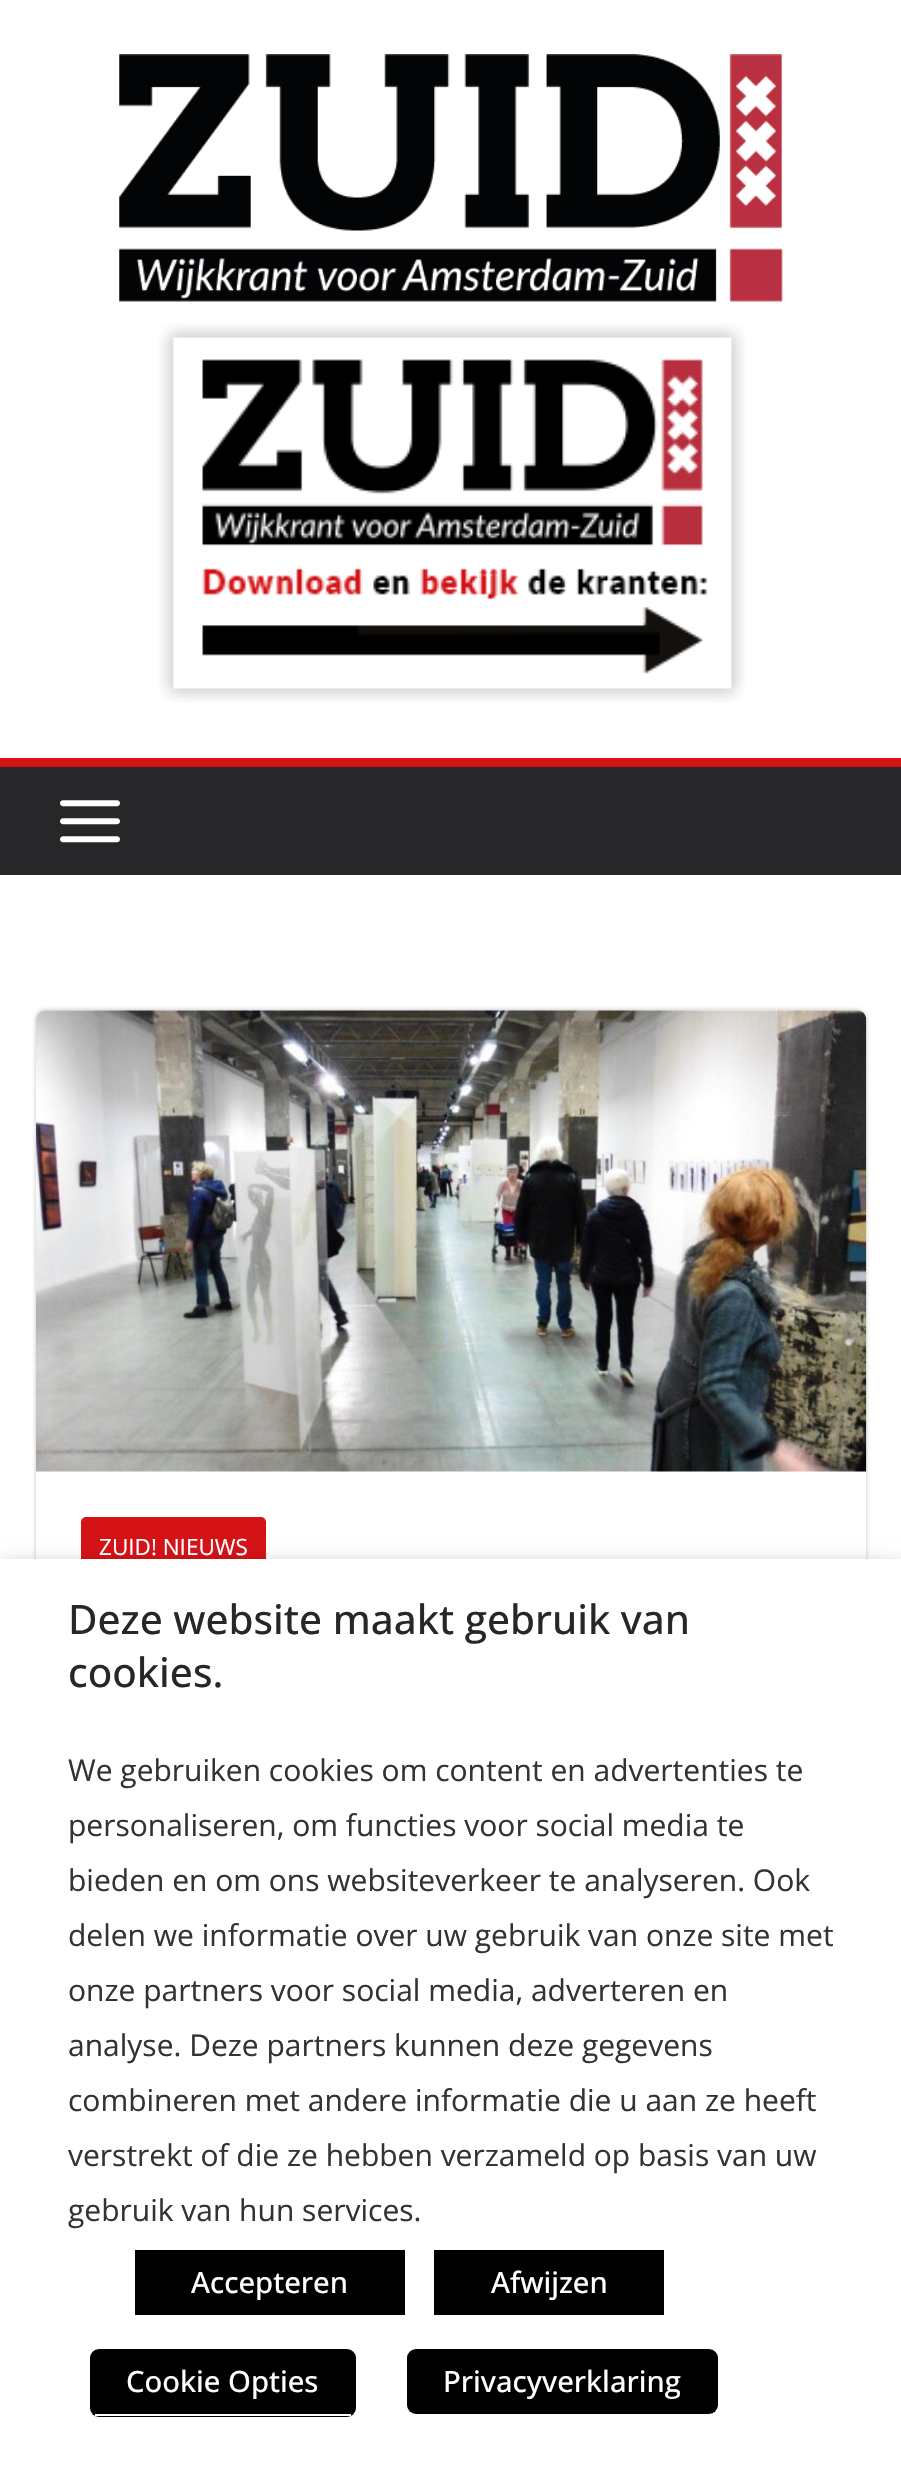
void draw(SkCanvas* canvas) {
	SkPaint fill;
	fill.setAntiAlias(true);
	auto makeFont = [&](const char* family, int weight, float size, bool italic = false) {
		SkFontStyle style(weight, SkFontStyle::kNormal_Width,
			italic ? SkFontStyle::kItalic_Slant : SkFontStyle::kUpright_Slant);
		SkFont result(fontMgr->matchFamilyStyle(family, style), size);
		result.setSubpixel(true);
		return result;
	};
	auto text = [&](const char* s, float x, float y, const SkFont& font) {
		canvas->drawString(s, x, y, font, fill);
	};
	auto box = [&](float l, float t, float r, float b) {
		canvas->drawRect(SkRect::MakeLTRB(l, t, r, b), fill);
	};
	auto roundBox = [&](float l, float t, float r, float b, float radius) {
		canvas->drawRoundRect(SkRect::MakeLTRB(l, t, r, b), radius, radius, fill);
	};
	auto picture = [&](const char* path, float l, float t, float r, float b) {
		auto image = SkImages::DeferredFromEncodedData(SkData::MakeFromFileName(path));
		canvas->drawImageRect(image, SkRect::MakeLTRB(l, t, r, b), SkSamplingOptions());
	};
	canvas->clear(0xFFFFFFFF);
	picture("image0.png", 119, 54, 783, 302);
	picture("image1.png", 159, 324, 745, 702);
	fill.setColor(0xFF27272A);
	box(0, 767, 901, 875);
	fill.setColor(0xFFD51317);
	box(0, 758, 901, 767);
	picture("image2.png", 60, 800, 120, 843);
	canvas->save();
	canvas->clipPath(SkPathBuilder(SkPathFillType::kEvenOdd).moveTo(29, 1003).lineTo(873, 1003).lineTo(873, 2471).lineTo(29, 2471).close().moveTo(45, 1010).lineTo(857, 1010).cubicTo(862, 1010, 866, 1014, 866, 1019).lineTo(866, 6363).cubicTo(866, 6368, 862, 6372, 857, 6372).lineTo(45, 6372).cubicTo(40, 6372, 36, 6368, 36, 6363).lineTo(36, 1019).cubicTo(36, 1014, 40, 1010, 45, 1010).close().detach(), true);
	fill.setColor(0x3D000000);
	fill.setMaskFilter(SkMaskFilter::MakeBlur(kNormal_SkBlurStyle, 2));
	canvas->drawRoundRect(SkRect::MakeLTRB(36, 1010, 866, 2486), 9, 9, fill);
	fill.setMaskFilter(nullptr);
	canvas->restore();
	picture("image3.png", 36, 1010, 867, 1472);
	fill.setColor(0xFFD51317);
	roundBox(81, 1517, 266, 1575, 5);
	fill.setColor(0x80000000);
	fill.setMaskFilter(SkMaskFilter::MakeBlur(kNormal_SkBlurStyle, 11));
	canvas->drawRect(SkRect::MakeLTRB(0, 1571, 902, 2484), fill);
	fill.setMaskFilter(nullptr);
	fill.setColor(0xFFFFFFFF);
	box(0, 1559, 901, 2471);
	fill.setColor(0xFF000000);
	box(135, 2250, 405, 2315);
	box(434, 2250, 664, 2315);
	roundBox(90, 2349, 356, 2417, 9);
	fill.setColor(0xFFFFFFFF);
	box(95, 2414, 351, 2416);
	fill.setColor(0xFF000000);
	roundBox(407, 2349, 718, 2414, 9);
	auto font1 = makeFont("Open Sans", 400, 22.5f);
	fill.setColor(0xFFFFFFFF);
	text("ZUID! NIEUWS", 99, 1555, font1);
	auto font2 = makeFont("Open Sans", 500, 40.5f);
	fill.setColor(0xFF27272A);
	text("Deze website maakt gebruik van", 68, 1634, font2);
	text("cookies.", 68, 1687, font2);
	auto font3 = makeFont("Open Sans", 400, 30);
	fill.setColor(0xFF333333);
	text("We gebruiken cookies om content en advertenties te", 68, 1781, font3);
	text("personaliseren, om functies voor social media te", 68, 1836, font3);
	text("bieden en om ons websiteverkeer te analyseren. Ook", 68, 1891, font3);
	text("delen we informatie over uw gebruik van onze site met", 68, 1946, font3);
	text("onze partners voor social media, adverteren en", 68, 2001, font3);
	text("analyse. Deze partners kunnen deze gegevens", 68, 2056, font3);
	text("combineren met andere informatie die u aan ze heeft", 68, 2111, font3);
	text("verstrekt of die ze hebben verzameld op basis van uw", 68, 2166, font3);
	text("gebruik van hun services.", 68, 2221, font3);
	auto font4 = makeFont("Open Sans", 500, 29.25f);
	fill.setColor(0xFFFFFFFF);
	text("Accepteren", 191, 2293, font4);
	text("Afwijzen", 491, 2293, font4);
	text("Cookie Opties", 126, 2392, font4);
	text("Privacyverklaring", 443, 2392, font4);
}
